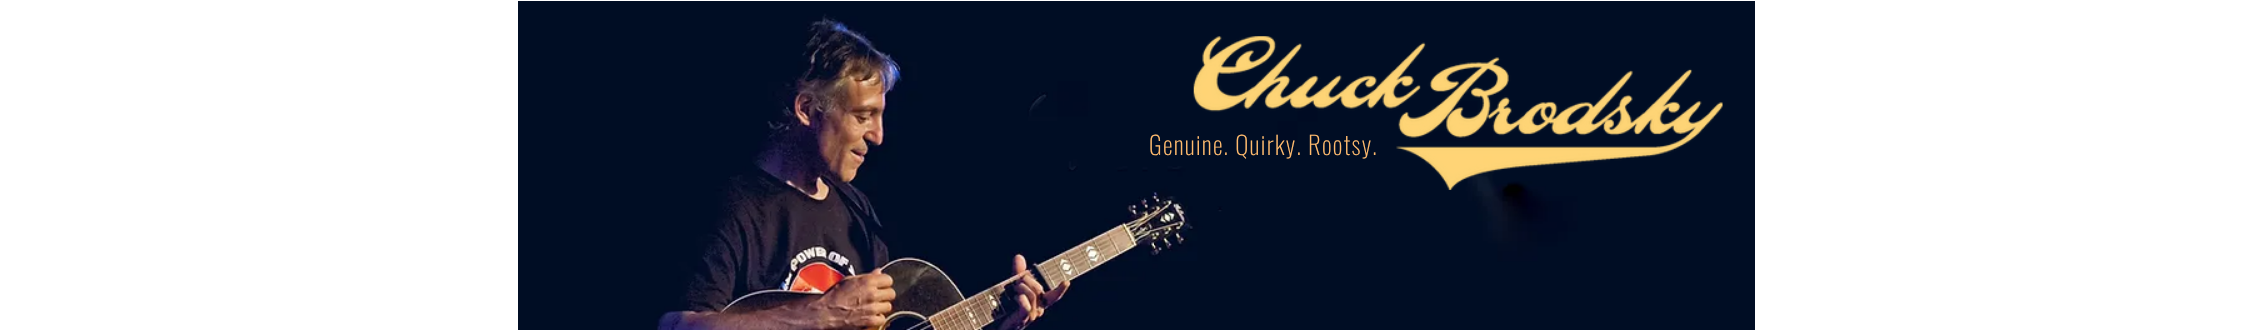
void draw(SkCanvas* canvas) {
	SkPaint fill;
	fill.setAntiAlias(true);
	auto makeFont = [&](const char* family, int weight, float size, bool italic = false) {
		SkFontStyle style(weight, SkFontStyle::kNormal_Width,
			italic ? SkFontStyle::kItalic_Slant : SkFontStyle::kUpright_Slant);
		SkFont result(fontMgr->matchFamilyStyle(family, style), size);
		result.setSubpixel(true);
		return result;
	};
	auto spacedText = [&](const char* s, float x, float y, const SkFont& font, const SkPaint& ink, float letter, float word) {
		std::vector<SkGlyphID> glyphs(font.countText(s, strlen(s), SkTextEncoding::kUTF8));
		std::vector<float> xs(glyphs.size());
		font.textToGlyphs(s, strlen(s), SkTextEncoding::kUTF8, glyphs);
		font.getXPos(glyphs, xs, x);
		float extra = 0;
		for (size_t i = 0; i < glyphs.size(); i++) {
			xs[i] += extra;
			extra += letter + word * (glyphs[i] == font.unicharToGlyph(' '));
		}
		canvas->drawTextBlob(SkTextBlob::MakeFromPosHGlyphs(glyphs, xs, y, font), 0, 0, ink);
	};
	auto picture = [&](const char* path, float l, float t, float r, float b) {
		auto image = SkImages::DeferredFromEncodedData(SkData::MakeFromFileName(path));
		canvas->drawImageRect(image, SkRect::MakeLTRB(l, t, r, b), SkSamplingOptions());
	};
	canvas->clear(0xFFFFFFFF);
	picture("image0.png", 518, 1, 1755, 330);
	picture("image1.png", 1193, 36, 1723, 190);
	auto font1 = makeFont("Oswald", 200, 25);
	fill.setColor(0xFFFFBB6E);
	spacedText("Genuine. Quirky. Rootsy.", 1149, 155, font1, fill, 1.25f, 0);
}
